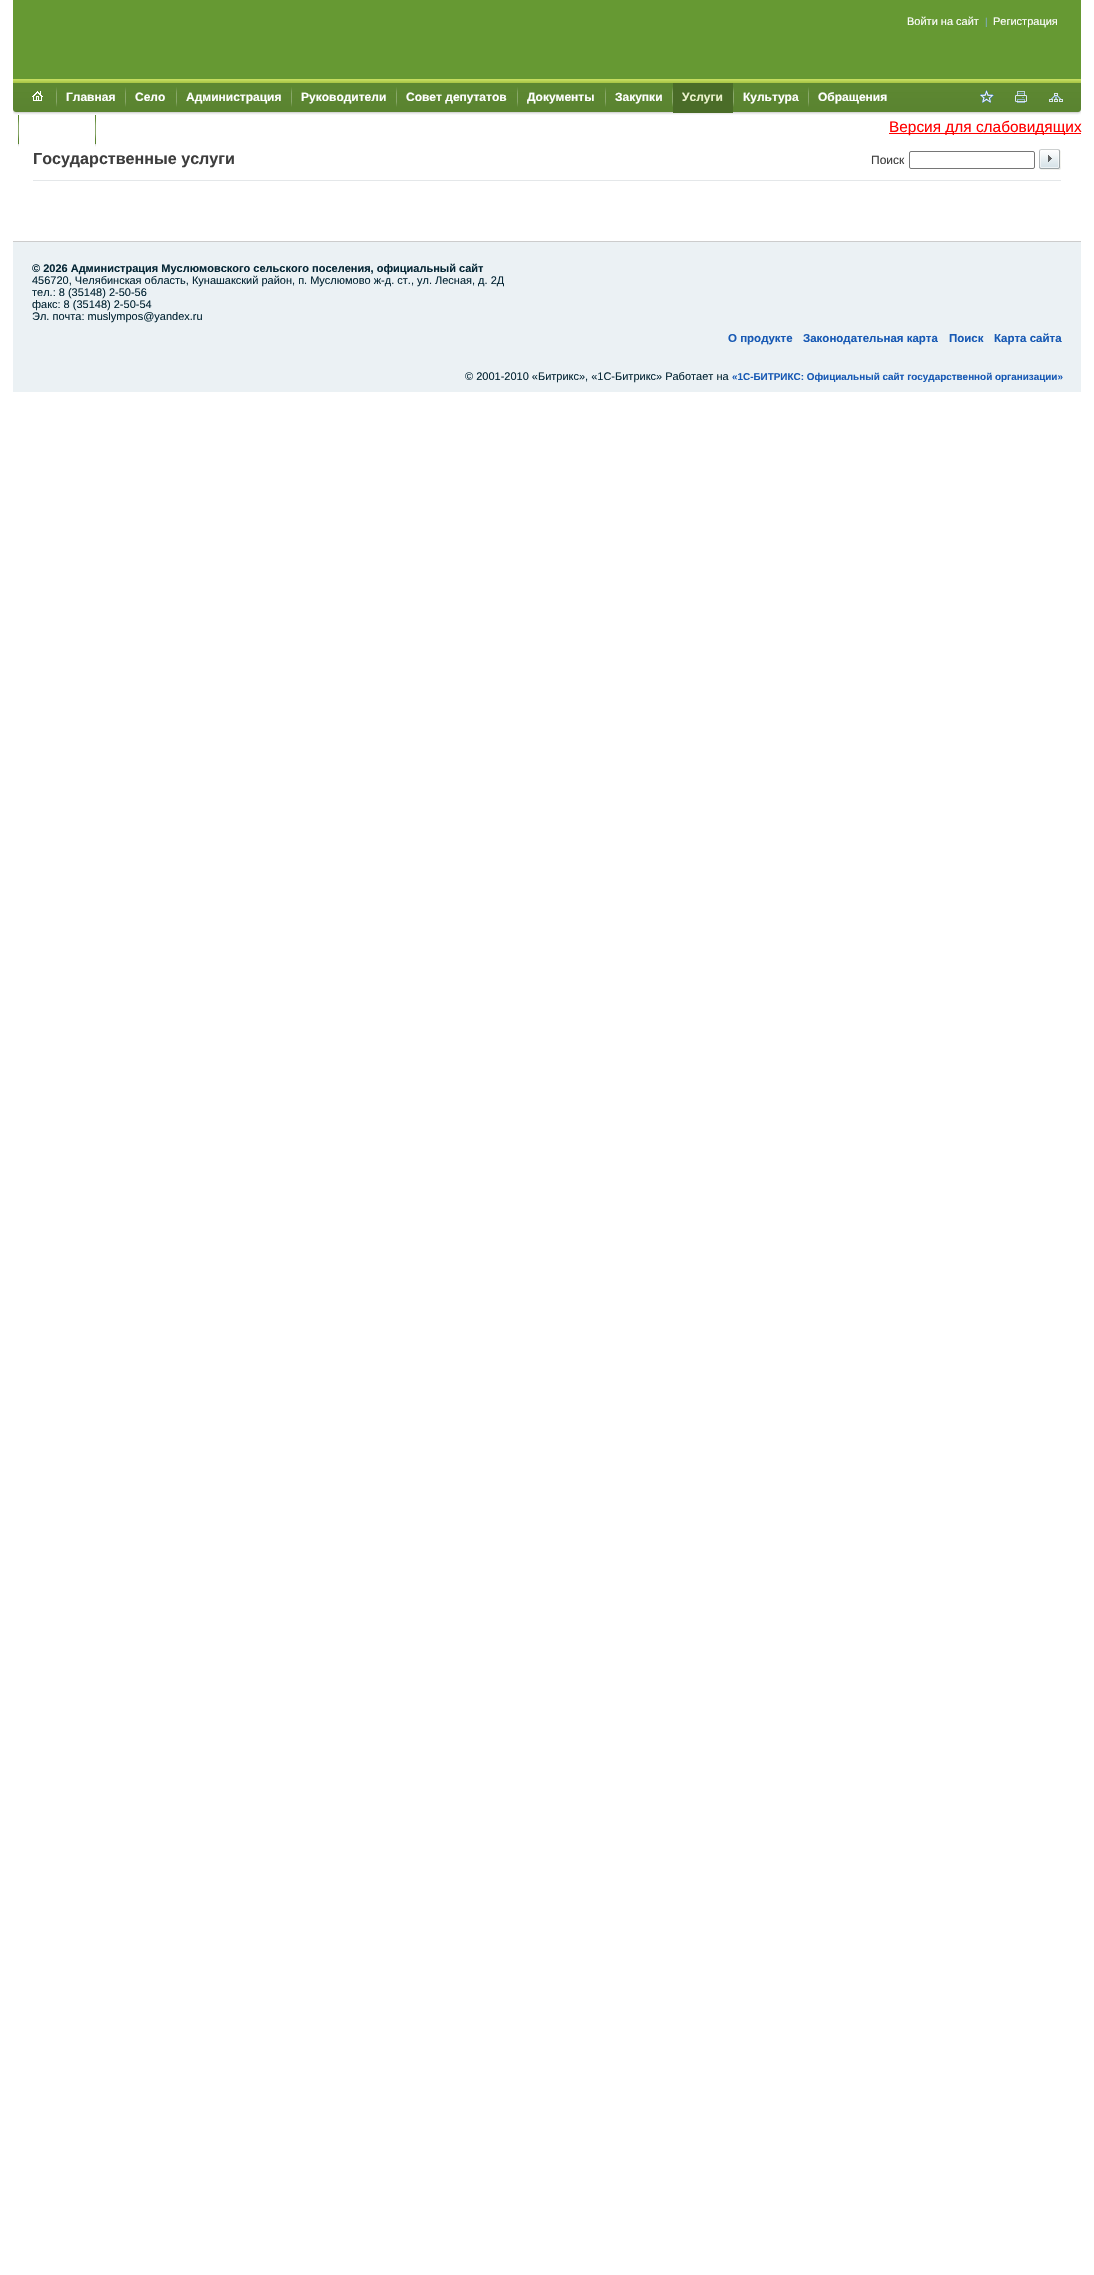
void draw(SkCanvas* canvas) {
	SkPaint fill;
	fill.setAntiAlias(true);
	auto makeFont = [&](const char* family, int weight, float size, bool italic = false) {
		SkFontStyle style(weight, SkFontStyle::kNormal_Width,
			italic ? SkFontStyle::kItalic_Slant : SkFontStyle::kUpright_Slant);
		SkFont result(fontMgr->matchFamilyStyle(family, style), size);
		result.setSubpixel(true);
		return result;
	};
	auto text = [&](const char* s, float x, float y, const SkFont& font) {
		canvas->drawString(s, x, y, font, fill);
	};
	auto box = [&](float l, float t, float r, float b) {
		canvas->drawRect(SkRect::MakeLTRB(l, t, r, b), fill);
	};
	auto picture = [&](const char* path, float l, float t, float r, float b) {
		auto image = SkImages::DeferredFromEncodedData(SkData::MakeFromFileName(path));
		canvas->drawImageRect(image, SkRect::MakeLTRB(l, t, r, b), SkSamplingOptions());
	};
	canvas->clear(0xFFFFFFFF);
	fill.setColor(0xFF669933);
	box(13, 0, 1081, 79);
	picture("image0.png", 13, 79, 1081, 83);
	picture("image1.png", 13, 83, 1081, 115);
	picture("image2.png", 13, 109, 16, 115);
	picture("image3.png", 18, 83, 931, 115);
	picture("image4.png", 32, 91, 43, 101);
	picture("image5.png", 56, 83, 57, 115);
	picture("image5.png", 125, 83, 126, 115);
	picture("image5.png", 176, 83, 177, 115);
	picture("image5.png", 291, 83, 292, 115);
	picture("image5.png", 396, 83, 397, 115);
	picture("image5.png", 517, 83, 518, 115);
	picture("image5.png", 605, 83, 606, 115);
	picture("image5.png", 672, 83, 673, 115);
	fill.setColor(0xFF4A6C28);
	box(673, 83, 733, 113);
	picture("image5.png", 733, 83, 734, 115);
	picture("image5.png", 808, 83, 809, 115);
	picture("image5.png", 18, 115, 19, 147);
	picture("image5.png", 95, 115, 96, 147);
	picture("image6.png", 1078, 109, 1081, 115);
	picture("image7.png", 980, 90, 994, 103);
	picture("image8.png", 1015, 91, 1027, 103);
	picture("image9.png", 1049, 93, 1063, 102);
	fill.setColor(0xFFFF0000);
	box(889, 133, 1081, 134);
	fill.setColor(0xFFE4E7E9);
	box(33, 180, 1061, 181);
	fill.setStyle(SkPaint::kStroke_Style);
	fill.setStrokeWidth(1);
	fill.setColor(0xFF767676);
	canvas->drawRoundRect(SkRect::MakeLTRB(909.5f, 151.5f, 1034.5f, 168.5f), 1.5f, 1.5f, fill);
	picture("image10.png", 1039, 149, 1061, 170);
	fill.setStyle(SkPaint::kFill_Style);
	fill.setColor(0xFFEBF1F4);
	box(13, 242, 1081, 392);
	fill.setColor(0xFFCCCCCC);
	box(13, 241, 1081, 242);
	auto font1 = makeFont("Liberation Sans", 400, 11);
	fill.setColor(0xFFFFFFFF);
	text("Войти на сайт", 907, 25, font1);
	auto font2 = makeFont("Liberation Sans", 400, 10);
	fill.setColor(0xFF81ACC0);
	text("|", 985, 25, font2);
	fill.setColor(0xFFFFFFFF);
	text("Регистрация", 993, 25, font1);
	auto font3 = makeFont("Liberation Sans", 700, 12);
	text("Главная", 66, 101, font3);
	text("Село", 135, 101, font3);
	text("Администрация", 186, 101, font3);
	text("Руководители", 301, 101, font3);
	text("Совет депутатов", 406, 101, font3);
	text("Документы", 527, 101, font3);
	text("Закупки", 615, 101, font3);
	fill.setColor(0xFFEBF3CC);
	text("Услуги", 682, 101, font3);
	fill.setColor(0xFFFFFFFF);
	text("Культура", 743, 101, font3);
	text("Обращения", 818, 101, font3);
	auto font4 = makeFont("Liberation Sans", 400, 15.4f);
	fill.setColor(0xFFFF0000);
	text("Версия для слабовидящих", 889, 132, font4);
	auto font5 = makeFont("Liberation Sans", 700, 16.1f);
	fill.setColor(0xFF3D3D3D);
	text("Государственные услуги", 33, 164, font5);
	auto font6 = makeFont("Liberation Sans", 400, 12);
	text("Поиск", 871, 164, font6);
	auto font7 = makeFont("Liberation Sans", 700, 11);
	fill.setColor(0xFF052635);
	text("© 2026 Администрация Муслюмовского сельского поселения, официальный сайт", 32, 272, font7);
	text("456720, Челябинская область, Кунашакский район, п. Муслюмово ж-д. ст., ул. Лесная, д. 2Д", 32, 284, font1);
	text("тел.: 8 (35148) 2-50-56", 32, 296, font1);
	text("факс: 8 (35148) 2-50-54", 32, 308, font1);
	text("Эл. почта: muslympos@yandex.ru", 32, 320, font1);
	auto font8 = makeFont("Liberation Sans", 700, 11.5f);
	fill.setColor(0xFF1759B4);
	text("О продукте", 728, 342, font8);
	text("Законодательная карта", 803, 342, font8);
	text("Поиск", 949, 342, font8);
	text("Карта сайта", 994, 342, font8);
	fill.setColor(0xFF052635);
	text("© 2001-2010 «Битрикс», «1С-Битрикс» Работает на", 465, 380, font1);
	auto font9 = makeFont("Liberation Sans", 700, 9.9f);
	fill.setColor(0xFF1759B4);
	text("«1С-БИТРИКС: Официальный сайт государственной организации»", 732, 380, font9);
}
